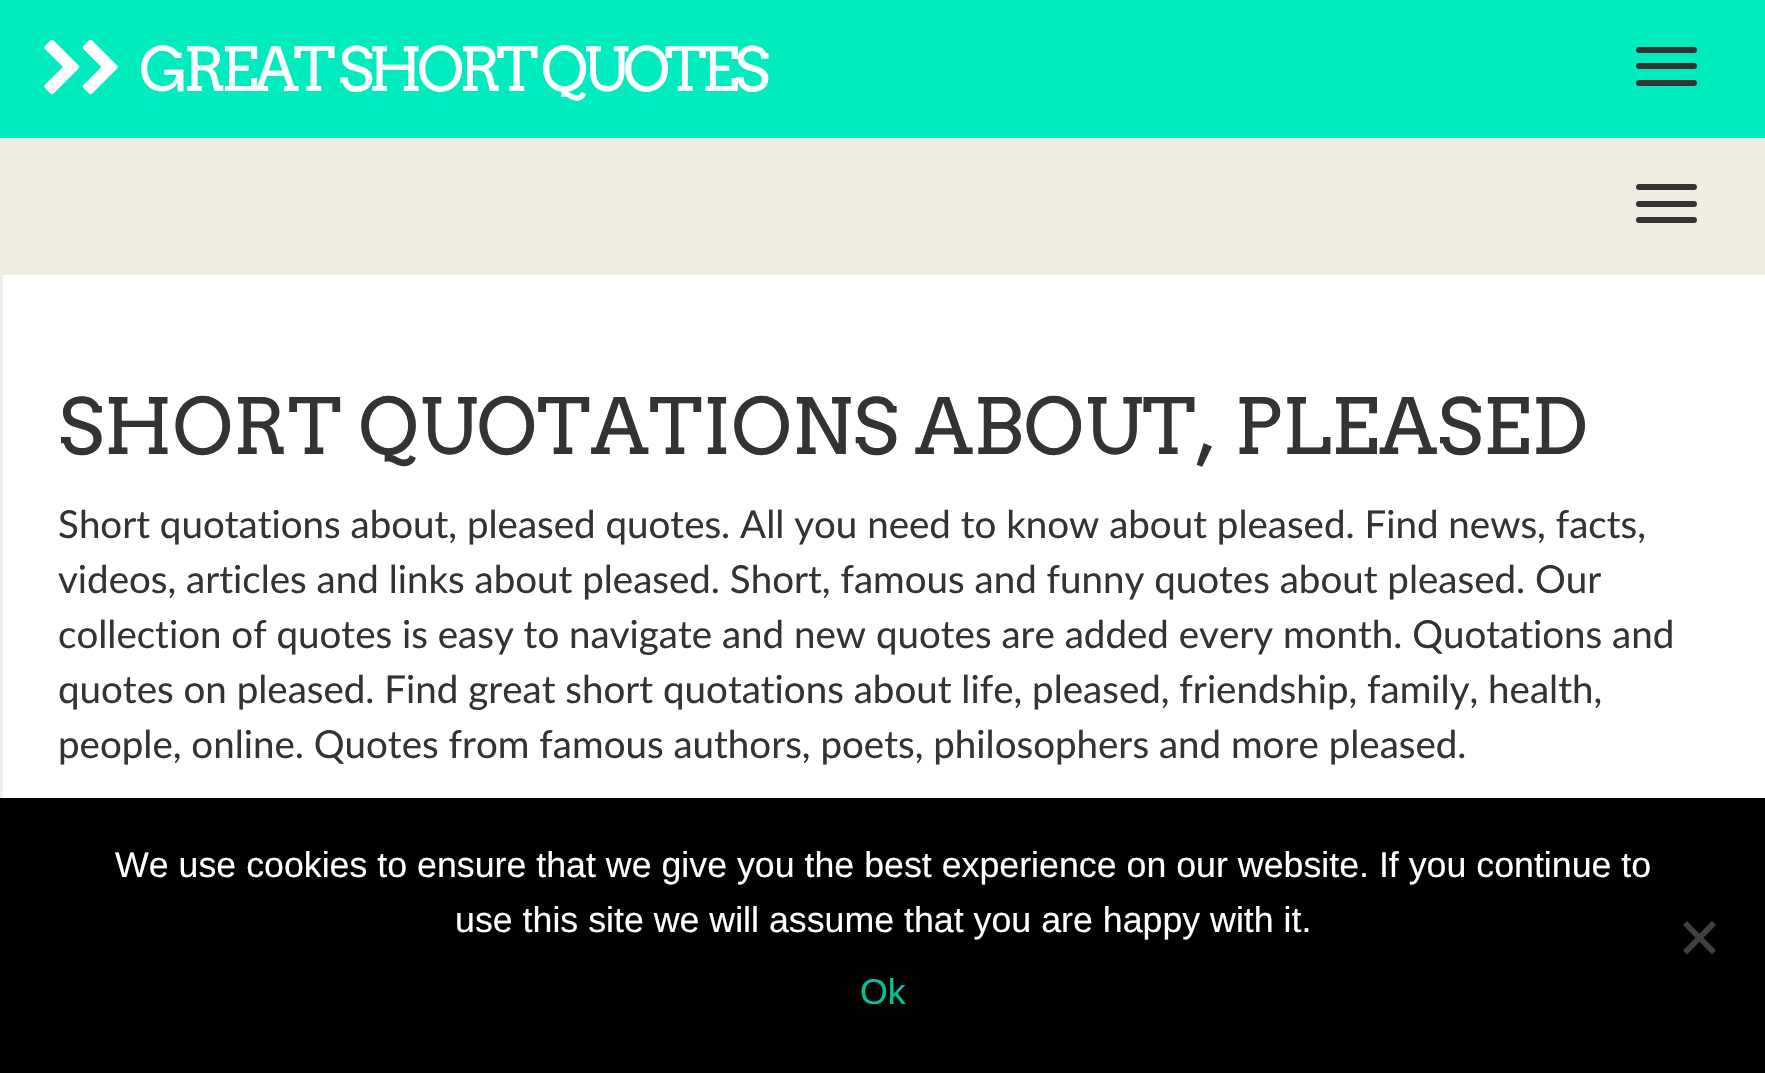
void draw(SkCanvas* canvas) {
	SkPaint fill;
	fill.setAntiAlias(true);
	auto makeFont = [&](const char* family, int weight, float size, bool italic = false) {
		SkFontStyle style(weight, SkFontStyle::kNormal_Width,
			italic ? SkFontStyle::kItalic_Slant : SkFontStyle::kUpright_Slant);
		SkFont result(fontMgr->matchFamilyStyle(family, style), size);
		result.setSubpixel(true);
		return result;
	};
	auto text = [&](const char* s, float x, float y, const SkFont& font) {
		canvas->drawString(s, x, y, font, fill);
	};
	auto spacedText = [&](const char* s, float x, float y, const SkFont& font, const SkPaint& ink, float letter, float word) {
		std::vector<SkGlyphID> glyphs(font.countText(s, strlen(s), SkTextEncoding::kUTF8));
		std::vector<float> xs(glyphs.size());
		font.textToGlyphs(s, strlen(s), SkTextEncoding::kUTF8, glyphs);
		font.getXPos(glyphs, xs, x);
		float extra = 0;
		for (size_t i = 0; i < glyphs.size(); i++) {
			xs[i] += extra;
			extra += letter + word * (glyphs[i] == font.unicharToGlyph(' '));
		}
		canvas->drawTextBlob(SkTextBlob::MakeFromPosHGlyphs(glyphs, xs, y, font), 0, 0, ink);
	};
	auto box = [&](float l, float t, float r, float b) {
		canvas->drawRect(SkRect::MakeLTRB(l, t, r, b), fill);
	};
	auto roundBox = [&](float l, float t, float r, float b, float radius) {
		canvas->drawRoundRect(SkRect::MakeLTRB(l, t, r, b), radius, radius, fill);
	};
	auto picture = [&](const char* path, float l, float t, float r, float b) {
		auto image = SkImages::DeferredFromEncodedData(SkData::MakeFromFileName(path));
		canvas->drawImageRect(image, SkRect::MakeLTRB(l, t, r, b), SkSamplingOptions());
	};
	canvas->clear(0xFFFFFFFF);
	fill.setColor(0xFF00EBBE);
	box(0, 0, 1765, 138);
	picture("image0.png", 44, 39, 80, 95);
	picture("image1.png", 82, 39, 118, 95);
	fill.setColor(0xFF333333);
	roundBox(1636, 47, 1697, 53, 3);
	roundBox(1636, 63, 1697, 69, 3);
	roundBox(1636, 80, 1697, 86, 3);
	fill.setColor(0xFFF0EDE3);
	box(0, 138, 1765, 275);
	fill.setColor(0xFF333333);
	roundBox(1636, 184, 1697, 190, 3);
	roundBox(1636, 201, 1697, 207, 3);
	roundBox(1636, 217, 1697, 223, 3);
	fill.setColor(0xFFEEEEEE);
	box(0, 275, 3, 798);
	fill.setColor(0xFF000000);
	box(0, 798, 1765, 1073);
	fill.setColor(0xFF404040);
	canvas->drawPath(SkPathBuilder().moveTo(1712, 921).lineTo(1716, 925).lineTo(1687, 954.5f).lineTo(1683, 950.5f).close().detach(), fill);
	canvas->drawPath(SkPathBuilder().moveTo(1683, 925).lineTo(1687, 921).lineTo(1716, 950.5f).lineTo(1712, 954.5f).close().detach(), fill);
	auto font1 = makeFont("Arvo", 400, 60.5f);
	fill.setColor(0xFFFFFFFF);
	spacedText("GREAT SHORT QUOTES", 139, 91, font1, fill, -5.5f, 0);
	auto font2 = makeFont("Arvo", 400, 77);
	fill.setColor(0xFF333333);
	text("SHORT QUOTATIONS ABOUT, PLEASED", 58, 454, font2);
	auto font3 = makeFont("Lato", 400, 38.5f);
	text("Short quotations about, pleased quotes. All you need to know about pleased. Find news, facts,", 58, 538, font3);
	text("videos, articles and links about pleased. Short, famous and funny quotes about pleased. Our", 58, 593, font3);
	text("collection of quotes is easy to navigate and new quotes are added every month. Quotations and", 58, 648, font3);
	text("quotes on pleased. Find great short quotations about life, pleased, friendship, family, health,", 58, 703, font3);
	text("people, online. Quotes from famous authors, poets, philosophers and more pleased.", 58, 758, font3);
	auto font4 = makeFont("Liberation Sans", 400, 35.75f);
	fill.setColor(0xFFFFFFFF);
	text("We use cookies to ensure that we give you the best experience on our website. If you continue to", 115, 877, font4);
	text("use this site we will assume that you are happy with it.", 455, 932, font4);
	fill.setColor(0xFF02C29D);
	text("Ok", 860, 1004, font4);
}
